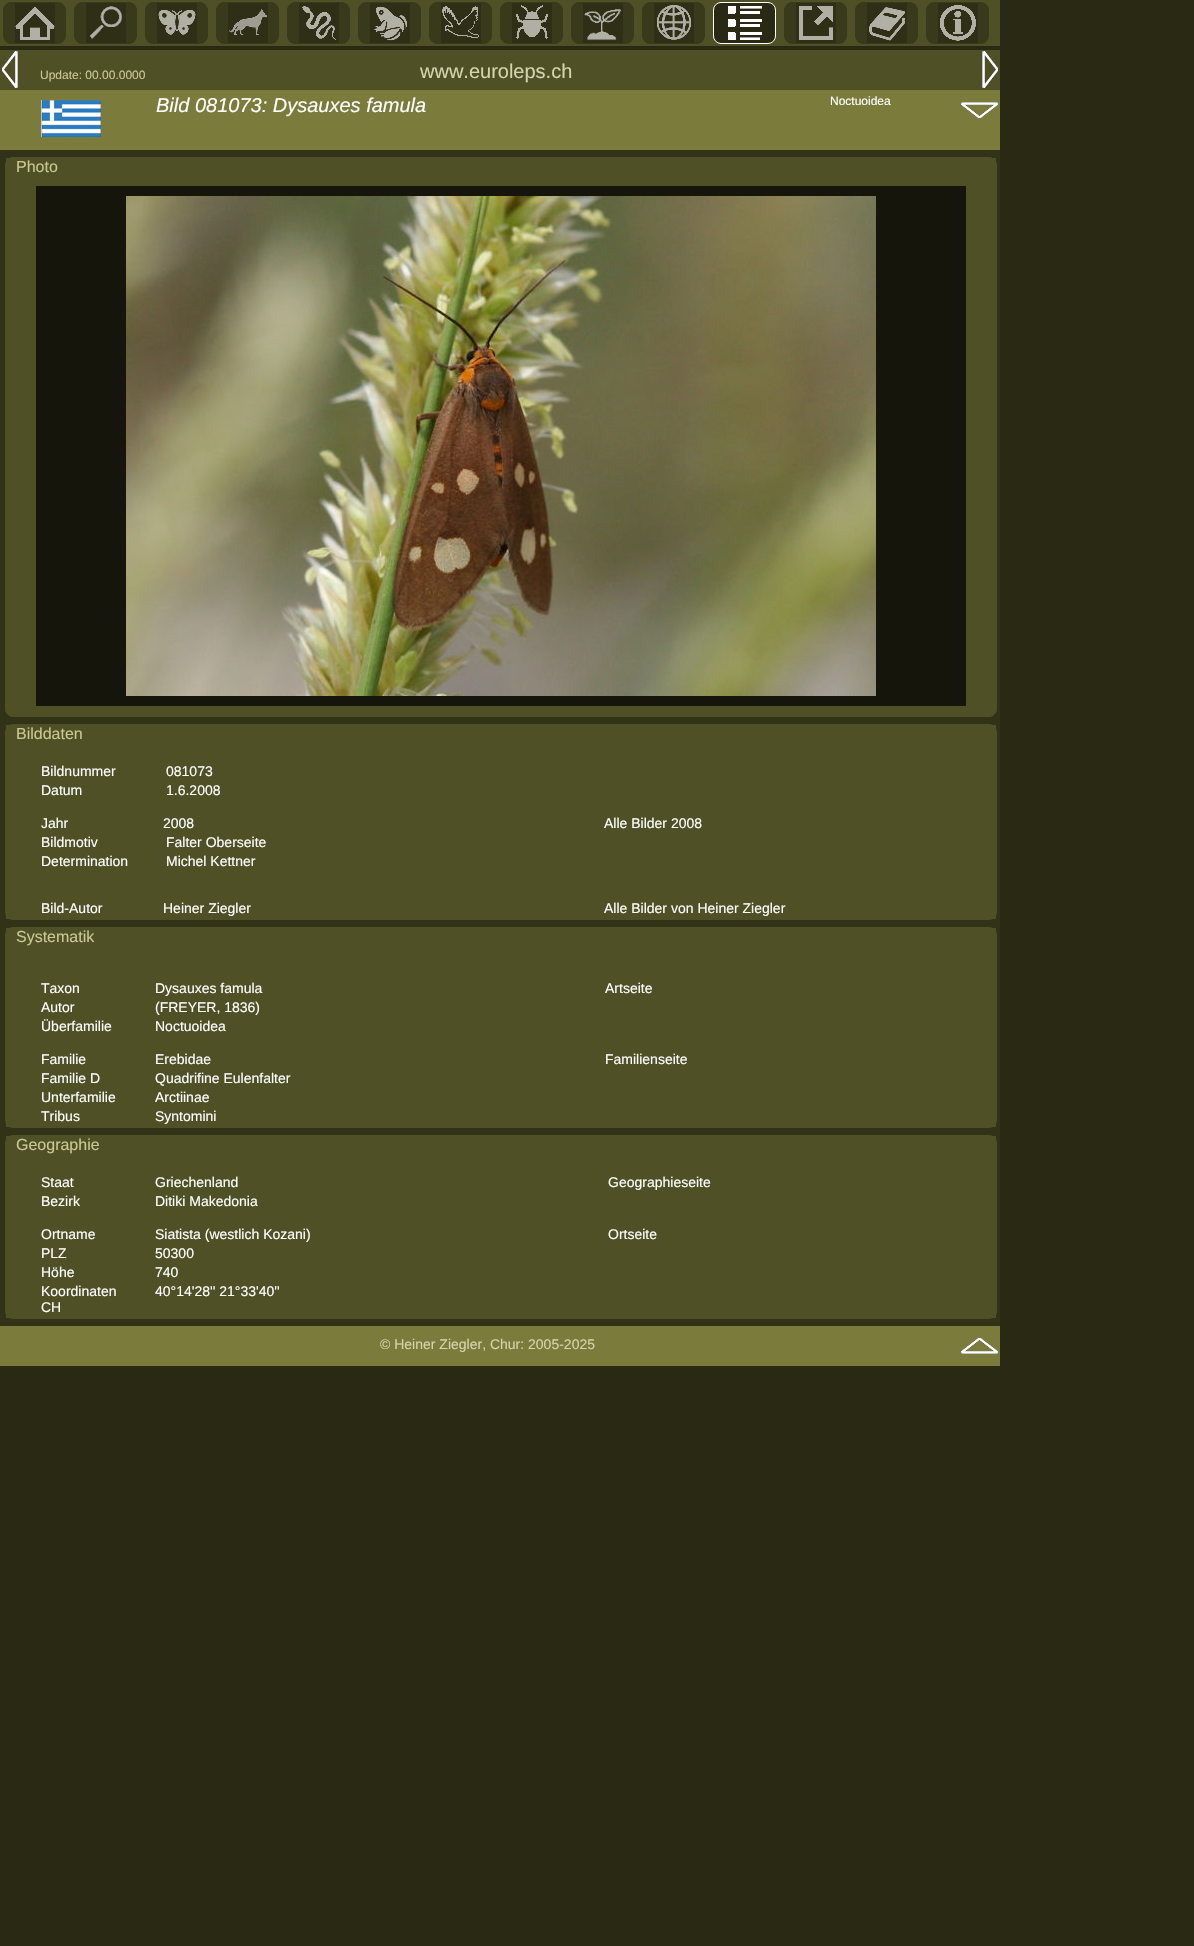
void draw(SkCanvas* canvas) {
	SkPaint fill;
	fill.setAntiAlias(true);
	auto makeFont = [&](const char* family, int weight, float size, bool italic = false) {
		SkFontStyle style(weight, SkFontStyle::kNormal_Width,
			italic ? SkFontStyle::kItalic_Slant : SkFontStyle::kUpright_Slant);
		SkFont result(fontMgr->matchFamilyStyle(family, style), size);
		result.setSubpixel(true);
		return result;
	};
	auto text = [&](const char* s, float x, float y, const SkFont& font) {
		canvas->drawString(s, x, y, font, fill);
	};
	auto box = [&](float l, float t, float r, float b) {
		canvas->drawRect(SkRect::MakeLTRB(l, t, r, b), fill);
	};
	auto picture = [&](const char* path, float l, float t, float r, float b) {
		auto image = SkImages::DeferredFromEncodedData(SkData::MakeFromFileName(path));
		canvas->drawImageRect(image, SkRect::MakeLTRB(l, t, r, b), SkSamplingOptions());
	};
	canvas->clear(0xFF292914);
	fill.setColor(0xFF505027);
	box(0, 0, 1000, 46);
	fill.setColor(0xFF39391C);
	canvas->drawRoundRect(SkRect::MakeLTRB(3.5f, 2.5f, 65.5f, 43.5f), 7.5f, 7.5f, fill);
	fill.setStyle(SkPaint::kStroke_Style);
	fill.setStrokeWidth(1);
	canvas->drawRoundRect(SkRect::MakeLTRB(3.5f, 2.5f, 65.5f, 43.5f), 7.5f, 7.5f, fill);
	picture("image0.png", 15, 3, 55, 43);
	fill.setStyle(SkPaint::kFill_Style);
	canvas->drawRoundRect(SkRect::MakeLTRB(74.5f, 2.5f, 136.5f, 43.5f), 7.5f, 7.5f, fill);
	fill.setStyle(SkPaint::kStroke_Style);
	canvas->drawRoundRect(SkRect::MakeLTRB(74.5f, 2.5f, 136.5f, 43.5f), 7.5f, 7.5f, fill);
	picture("image1.png", 86, 3, 126, 43);
	fill.setStyle(SkPaint::kFill_Style);
	canvas->drawRoundRect(SkRect::MakeLTRB(145.5f, 2.5f, 207.5f, 43.5f), 7.5f, 7.5f, fill);
	fill.setStyle(SkPaint::kStroke_Style);
	canvas->drawRoundRect(SkRect::MakeLTRB(145.5f, 2.5f, 207.5f, 43.5f), 7.5f, 7.5f, fill);
	picture("image2.png", 157, 3, 197, 43);
	fill.setStyle(SkPaint::kFill_Style);
	canvas->drawRoundRect(SkRect::MakeLTRB(216.5f, 2.5f, 278.5f, 43.5f), 7.5f, 7.5f, fill);
	fill.setStyle(SkPaint::kStroke_Style);
	canvas->drawRoundRect(SkRect::MakeLTRB(216.5f, 2.5f, 278.5f, 43.5f), 7.5f, 7.5f, fill);
	picture("image3.png", 228, 3, 268, 43);
	fill.setStyle(SkPaint::kFill_Style);
	canvas->drawRoundRect(SkRect::MakeLTRB(287.5f, 2.5f, 349.5f, 43.5f), 7.5f, 7.5f, fill);
	fill.setStyle(SkPaint::kStroke_Style);
	canvas->drawRoundRect(SkRect::MakeLTRB(287.5f, 2.5f, 349.5f, 43.5f), 7.5f, 7.5f, fill);
	picture("image4.png", 299, 3, 339, 43);
	fill.setStyle(SkPaint::kFill_Style);
	canvas->drawRoundRect(SkRect::MakeLTRB(358.5f, 2.5f, 420.5f, 43.5f), 7.5f, 7.5f, fill);
	fill.setStyle(SkPaint::kStroke_Style);
	canvas->drawRoundRect(SkRect::MakeLTRB(358.5f, 2.5f, 420.5f, 43.5f), 7.5f, 7.5f, fill);
	picture("image5.png", 370, 3, 410, 43);
	fill.setStyle(SkPaint::kFill_Style);
	canvas->drawRoundRect(SkRect::MakeLTRB(429.5f, 2.5f, 491.5f, 43.5f), 7.5f, 7.5f, fill);
	fill.setStyle(SkPaint::kStroke_Style);
	canvas->drawRoundRect(SkRect::MakeLTRB(429.5f, 2.5f, 491.5f, 43.5f), 7.5f, 7.5f, fill);
	picture("image6.png", 441, 3, 481, 43);
	fill.setStyle(SkPaint::kFill_Style);
	canvas->drawRoundRect(SkRect::MakeLTRB(500.5f, 2.5f, 562.5f, 43.5f), 7.5f, 7.5f, fill);
	fill.setStyle(SkPaint::kStroke_Style);
	canvas->drawRoundRect(SkRect::MakeLTRB(500.5f, 2.5f, 562.5f, 43.5f), 7.5f, 7.5f, fill);
	picture("image7.png", 512, 3, 552, 43);
	fill.setStyle(SkPaint::kFill_Style);
	canvas->drawRoundRect(SkRect::MakeLTRB(571.5f, 2.5f, 633.5f, 43.5f), 7.5f, 7.5f, fill);
	fill.setStyle(SkPaint::kStroke_Style);
	canvas->drawRoundRect(SkRect::MakeLTRB(571.5f, 2.5f, 633.5f, 43.5f), 7.5f, 7.5f, fill);
	picture("image8.png", 583, 3, 623, 43);
	fill.setStyle(SkPaint::kFill_Style);
	canvas->drawRoundRect(SkRect::MakeLTRB(642.5f, 2.5f, 704.5f, 43.5f), 7.5f, 7.5f, fill);
	fill.setStyle(SkPaint::kStroke_Style);
	canvas->drawRoundRect(SkRect::MakeLTRB(642.5f, 2.5f, 704.5f, 43.5f), 7.5f, 7.5f, fill);
	picture("image9.png", 654, 3, 694, 43);
	fill.setStyle(SkPaint::kFill_Style);
	fill.setColor(0xFF292914);
	canvas->drawRoundRect(SkRect::MakeLTRB(713.5f, 2.5f, 775.5f, 43.5f), 7.5f, 7.5f, fill);
	fill.setStyle(SkPaint::kStroke_Style);
	fill.setColor(0xFFFFFFFF);
	canvas->drawRoundRect(SkRect::MakeLTRB(713.5f, 2.5f, 775.5f, 43.5f), 7.5f, 7.5f, fill);
	picture("image10.png", 728, 6, 762, 40);
	fill.setStyle(SkPaint::kFill_Style);
	fill.setColor(0xFF39391C);
	canvas->drawRoundRect(SkRect::MakeLTRB(784.5f, 2.5f, 846.5f, 43.5f), 7.5f, 7.5f, fill);
	fill.setStyle(SkPaint::kStroke_Style);
	canvas->drawRoundRect(SkRect::MakeLTRB(784.5f, 2.5f, 846.5f, 43.5f), 7.5f, 7.5f, fill);
	picture("image11.png", 796, 3, 836, 43);
	fill.setStyle(SkPaint::kFill_Style);
	canvas->drawRoundRect(SkRect::MakeLTRB(855.5f, 2.5f, 917.5f, 43.5f), 7.5f, 7.5f, fill);
	fill.setStyle(SkPaint::kStroke_Style);
	canvas->drawRoundRect(SkRect::MakeLTRB(855.5f, 2.5f, 917.5f, 43.5f), 7.5f, 7.5f, fill);
	picture("image12.png", 867, 3, 907, 43);
	fill.setStyle(SkPaint::kFill_Style);
	canvas->drawRoundRect(SkRect::MakeLTRB(926.5f, 2.5f, 988.5f, 43.5f), 7.5f, 7.5f, fill);
	fill.setStyle(SkPaint::kStroke_Style);
	canvas->drawRoundRect(SkRect::MakeLTRB(926.5f, 2.5f, 988.5f, 43.5f), 7.5f, 7.5f, fill);
	picture("image13.png", 938, 3, 978, 43);
	fill.setStyle(SkPaint::kFill_Style);
	fill.setColor(0xFF505027);
	box(0, 50, 1000, 90);
	picture("image14.png", 2, 51, 18, 88);
	picture("image15.png", 982, 51, 998, 88);
	fill.setColor(0xFF7B7B3C);
	box(0, 90, 1000, 150);
	picture("image16.png", 41, 100, 101, 137);
	picture("image17.png", 961, 102, 998, 118);
	fill.setColor(0xFF323218);
	box(0, 150, 1000, 1326);
	fill.setColor(0xFF505027);
	canvas->drawRoundRect(SkRect::MakeLTRB(5.5f, 157.5f, 996.5f, 716.5f), 7.5f, 7.5f, fill);
	fill.setStyle(SkPaint::kStroke_Style);
	canvas->drawRoundRect(SkRect::MakeLTRB(5.5f, 157.5f, 996.5f, 716.5f), 7.5f, 7.5f, fill);
	fill.setStyle(SkPaint::kFill_Style);
	box(6, 158, 996, 161);
	fill.setColor(0xFF15150B);
	box(36, 186, 966, 706);
	picture("image18.png", 126, 196, 876, 696);
	fill.setStyle(SkPaint::kStroke_Style);
	fill.setColor(0xFF505027);
	canvas->drawRoundRect(SkRect::MakeLTRB(5.5f, 724.5f, 996.5f, 919.5f), 7.5f, 7.5f, fill);
	fill.setStyle(SkPaint::kFill_Style);
	box(6, 725, 996, 919);
	fill.setStyle(SkPaint::kStroke_Style);
	canvas->drawRoundRect(SkRect::MakeLTRB(5.5f, 927.5f, 996.5f, 1127.5f), 7.5f, 7.5f, fill);
	fill.setStyle(SkPaint::kFill_Style);
	box(6, 928, 996, 1127);
	fill.setStyle(SkPaint::kStroke_Style);
	canvas->drawRoundRect(SkRect::MakeLTRB(5.5f, 1135.5f, 996.5f, 1318.5f), 7.5f, 7.5f, fill);
	fill.setStyle(SkPaint::kFill_Style);
	box(6, 1136, 996, 1318);
	fill.setColor(0xFF7B7B3C);
	box(0, 1326, 1000, 1366);
	picture("image19.png", 961, 1338, 998, 1354);
	auto font1 = makeFont("Liberation Sans", 400, 12);
	fill.setColor(0xFFC9C994);
	text("Update: 00.00.0000", 40, 79, font1);
	auto font2 = makeFont("Liberation Sans", 400, 20);
	fill.setColor(0xFFD5D5AD);
	text("www.euroleps.ch", 420, 78, font2);
	auto font3 = makeFont("Liberation Sans", 400, 20, true);
	fill.setColor(0xFFFFFFFF);
	text("Bild 081073: Dysauxes famula", 156, 112, font3);
	text("Noctuoidea", 830, 105, font1);
	auto font4 = makeFont("Liberation Sans", 400, 16);
	fill.setColor(0xFFC9C994);
	text("Photo", 16, 172, font4);
	text("Bilddaten", 16, 739, font4);
	auto font5 = makeFont("Liberation Sans", 400, 14);
	fill.setColor(0xFFFFFFFF);
	text("Bildnummer", 41, 776, font5);
	text("081073", 166, 776, font5);
	text("Datum", 41, 795, font5);
	text("1.6.2008", 166, 795, font5);
	text("Jahr", 41, 828, font5);
	text("2008", 163, 828, font5);
	text("Alle Bilder 2008", 604, 828, font5);
	text("Bildmotiv", 41, 847, font5);
	text("Falter Oberseite", 166, 847, font5);
	text("Determination", 41, 866, font5);
	text("Michel Kettner", 166, 866, font5);
	text("Bild-Autor", 41, 913, font5);
	text("Heiner Ziegler", 163, 913, font5);
	text("Alle Bilder von Heiner Ziegler", 604, 913, font5);
	fill.setColor(0xFFC9C994);
	text("Systematik", 16, 942, font4);
	fill.setColor(0xFFFFFFFF);
	text("Taxon", 41, 993, font5);
	text("Dysauxes famula", 155, 993, font5);
	text("Artseite", 605, 993, font5);
	text("Autor", 41, 1012, font5);
	text("(FREYER, 1836)", 155, 1012, font5);
	text("Überfamilie", 41, 1031, font5);
	text("Noctuoidea", 155, 1031, font5);
	text("Familie", 41, 1064, font5);
	text("Erebidae", 155, 1064, font5);
	text("Familienseite", 605, 1064, font5);
	text("Familie D", 41, 1083, font5);
	text("Quadrifine Eulenfalter", 155, 1083, font5);
	text("Unterfamilie", 41, 1102, font5);
	text("Arctiinae", 155, 1102, font5);
	text("Tribus", 41, 1121, font5);
	text("Syntomini", 155, 1121, font5);
	fill.setColor(0xFFC9C994);
	text("Geographie", 16, 1150, font4);
	fill.setColor(0xFFFFFFFF);
	text("Staat", 41, 1187, font5);
	text("Griechenland", 155, 1187, font5);
	text("Geographieseite", 608, 1187, font5);
	text("Bezirk", 41, 1206, font5);
	text("Ditiki Makedonia", 155, 1206, font5);
	text("Ortname", 41, 1239, font5);
	text("Siatista (westlich Kozani)", 155, 1239, font5);
	text("Ortseite", 608, 1239, font5);
	text("PLZ", 41, 1258, font5);
	text("50300", 155, 1258, font5);
	text("Höhe", 41, 1277, font5);
	text("740", 155, 1277, font5);
	text("Koordinaten", 41, 1296, font5);
	text("CH", 41, 1312, font5);
	text("40°14'28'' 21°33'40''", 155, 1296, font5);
	fill.setColor(0xFFD5D5AD);
	text("© Heiner Ziegler, Chur: 2005-2025", 380, 1349, font5);
}
